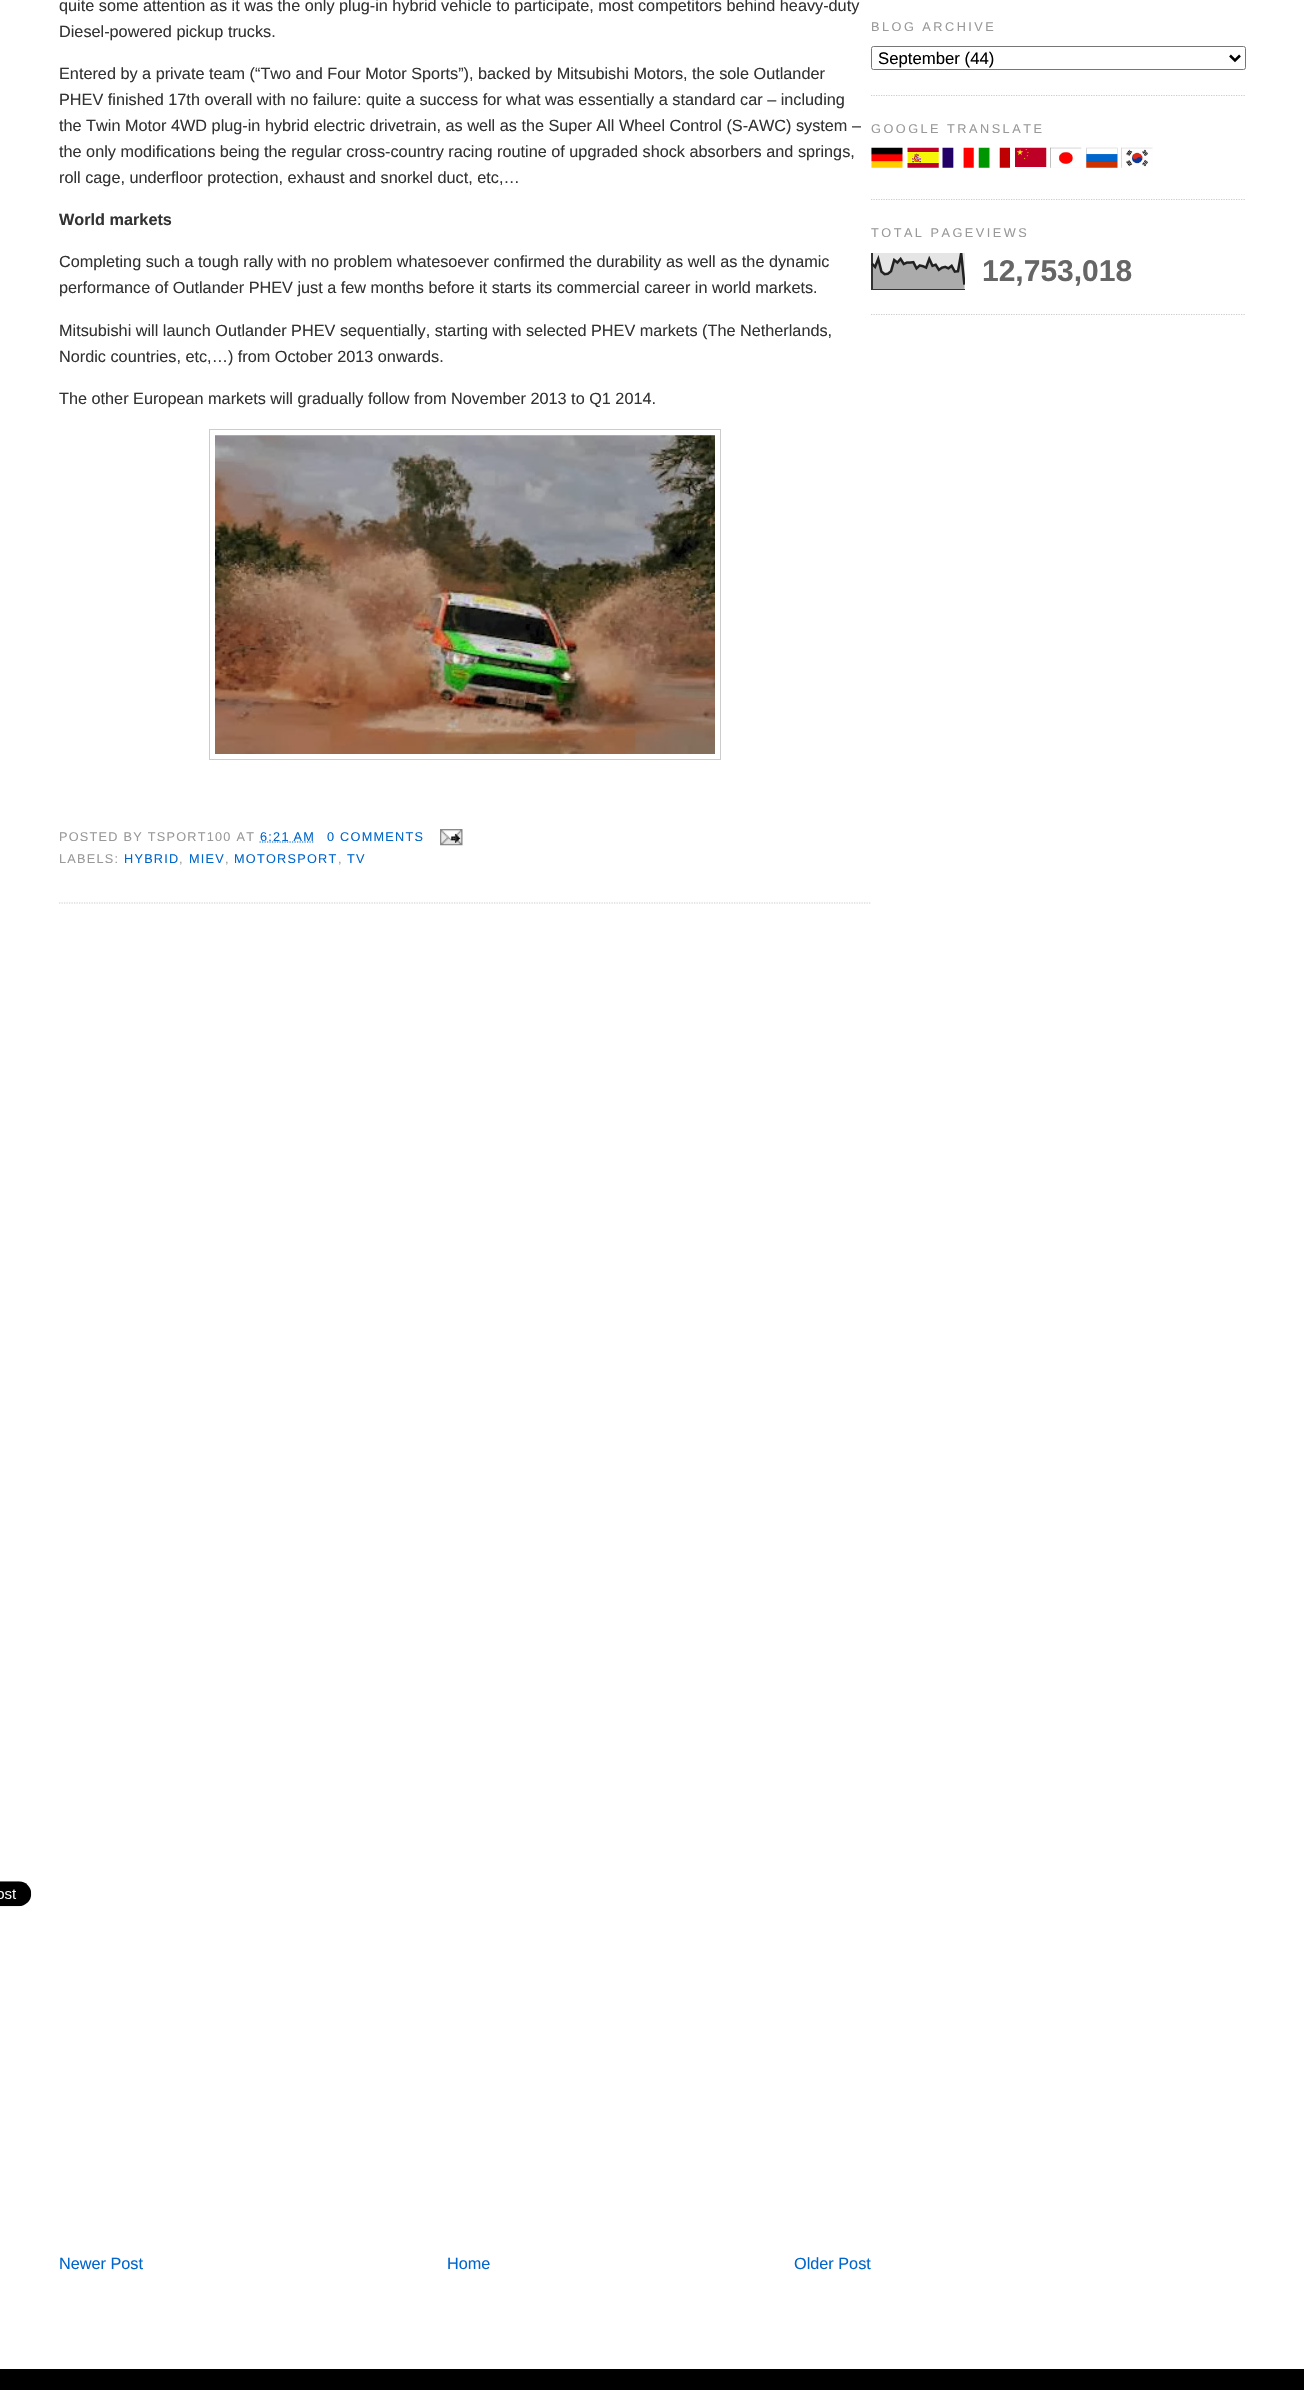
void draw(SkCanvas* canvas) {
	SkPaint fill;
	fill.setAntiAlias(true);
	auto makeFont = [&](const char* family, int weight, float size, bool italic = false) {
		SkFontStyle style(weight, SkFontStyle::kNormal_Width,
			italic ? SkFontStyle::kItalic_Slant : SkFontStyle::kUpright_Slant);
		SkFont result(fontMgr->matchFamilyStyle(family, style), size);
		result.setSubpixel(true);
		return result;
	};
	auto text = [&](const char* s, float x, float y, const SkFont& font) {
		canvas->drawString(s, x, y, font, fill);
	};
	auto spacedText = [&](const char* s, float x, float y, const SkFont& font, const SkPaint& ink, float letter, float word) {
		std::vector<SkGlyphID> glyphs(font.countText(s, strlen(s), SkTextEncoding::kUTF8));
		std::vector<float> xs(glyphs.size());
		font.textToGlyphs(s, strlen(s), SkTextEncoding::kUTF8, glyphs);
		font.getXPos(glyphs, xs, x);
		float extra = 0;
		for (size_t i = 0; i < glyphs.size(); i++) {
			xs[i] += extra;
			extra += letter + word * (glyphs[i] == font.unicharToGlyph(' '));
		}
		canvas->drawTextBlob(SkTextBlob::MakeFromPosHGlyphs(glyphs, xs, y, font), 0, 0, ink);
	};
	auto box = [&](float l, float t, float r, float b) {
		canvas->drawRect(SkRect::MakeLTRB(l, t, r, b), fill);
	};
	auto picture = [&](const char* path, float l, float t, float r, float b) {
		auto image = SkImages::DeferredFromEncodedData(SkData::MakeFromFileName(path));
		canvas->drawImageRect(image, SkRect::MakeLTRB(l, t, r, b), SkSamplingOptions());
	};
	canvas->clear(0xFFFFFFFF);
	fill.setStyle(SkPaint::kStroke_Style);
	fill.setStrokeWidth(1.2f);
	fill.setColor(0xFFCCCCCC);
	fill.setPathEffect(SkDashPathEffect::Make({{1.25f, 1.25f}}, 0));
	canvas->drawPath(SkPathBuilder().moveTo(59, 903).lineTo(871, 903).detach(), fill);
	fill.setPathEffect(nullptr);
	fill.setStrokeWidth(1);
	canvas->drawRect(SkRect::MakeLTRB(209.5f, 429.5f, 720.5f, 759.5f), fill);
	picture("image0.png", 215, 435, 715, 754);
	picture("image1.png", 0, 1881, 32, 1907);
	fill.setStrokeWidth(1.2f);
	fill.setColor(0xFF0066CC);
	fill.setPathEffect(SkDashPathEffect::Make({{1.25f, 1.25f}}, 0));
	canvas->drawPath(SkPathBuilder().moveTo(259.5f, 842).lineTo(314.5f, 842).detach(), fill);
	fill.setPathEffect(nullptr);
	picture("image2.png", 440, 829, 463, 846);
	fill.setColor(0xFFCCCCCC);
	fill.setPathEffect(SkDashPathEffect::Make({{1.25f, 1.25f}}, 0));
	canvas->drawPath(SkPathBuilder().moveTo(871, 95.5f).lineTo(1246, 95.5f).detach(), fill);
	fill.setPathEffect(nullptr);
	fill.setStrokeWidth(1);
	fill.setColor(0xFF767676);
	canvas->drawRoundRect(SkRect::MakeLTRB(871.5f, 46.5f, 1245.5f, 69.5f), 2, 2, fill);
	fill.setStrokeWidth(2.5f);
	fill.setColor(0xFF000000);
	canvas->drawPath(SkPathBuilder().moveTo(1230, 55.5f).lineTo(1235, 60.5f).lineTo(1240, 55.5f).detach(), fill);
	fill.setStrokeWidth(1.2f);
	fill.setColor(0xFFCCCCCC);
	fill.setPathEffect(SkDashPathEffect::Make({{1.25f, 1.25f}}, 0));
	canvas->drawPath(SkPathBuilder().moveTo(871, 199.5f).lineTo(1246, 199.5f).detach(), fill);
	fill.setPathEffect(nullptr);
	picture("image3.png", 871, 147, 903, 168);
	picture("image4.png", 907, 147, 939, 168);
	picture("image5.png", 942, 147, 974, 168);
	picture("image6.png", 978, 147, 1010, 168);
	picture("image7.png", 1015, 147, 1047, 167);
	picture("image8.png", 1050, 147, 1082, 168);
	picture("image9.png", 1086, 147, 1118, 168);
	picture("image10.png", 1121, 147, 1153, 168);
	fill.setPathEffect(SkDashPathEffect::Make({{1.25f, 1.25f}}, 0));
	canvas->drawPath(SkPathBuilder().moveTo(871, 314.5f).lineTo(1246, 314.5f).detach(), fill);
	fill.setPathEffect(nullptr);
	picture("image11.png", 871, 253, 965, 290);
	fill.setStyle(SkPaint::kFill_Style);
	fill.setColor(0xFF000000);
	box(0, 2369, 1304, 2390);
	auto font1 = makeFont("Liberation Sans", 400, 16.25f);
	fill.setColor(0xFF333333);
	text("quite some attention as it was the only plug-in hybrid vehicle to participate, most competitors behind heavy-duty", 59, 11, font1);
	text("Diesel-powered pickup trucks.", 59, 37, font1);
	text("Entered by a private team (“Two and Four Motor Sports”), backed by Mitsubishi Motors, the sole Outlander", 59, 79, font1);
	text("PHEV finished 17th overall with no failure: quite a success for what was essentially a standard car – including", 59, 105, font1);
	text("the Twin Motor 4WD plug-in hybrid electric drivetrain, as well as the Super All Wheel Control (S-AWC) system –", 59, 131, font1);
	text("the only modifications being the regular cross-country racing routine of upgraded shock absorbers and springs,", 59, 157, font1);
	text("roll cage, underfloor protection, exhaust and snorkel duct, etc,…", 59, 183, font1);
	auto font2 = makeFont("Liberation Sans", 700, 16.25f);
	text("World markets", 59, 225, font2);
	text("Completing such a tough rally with no problem whatesoever confirmed the durability as well as the dynamic", 59, 267, font1);
	text("performance of Outlander PHEV just a few months before it starts its commercial career in world markets.", 59, 293, font1);
	text("Mitsubishi will launch Outlander PHEV sequentially, starting with selected PHEV markets (The Netherlands,", 59, 336, font1);
	text("Nordic countries, etc,…) from October 2013 onwards.", 59, 362, font1);
	text("The other European markets will gradually follow from November 2013 to Q1 2014.", 59, 404, font1);
	auto font3 = makeFont("Liberation Sans", 400, 12.7f);
	fill.setColor(0xFF999999);
	spacedText("POSTED BY TSPORT100 AT", 59, 841, font3, fill, 1.25f, 0);
	fill.setColor(0xFF0066CC);
	spacedText("6:21 AM", 260, 841, font3, fill, 1.25f, 0);
	spacedText("0 COMMENTS", 327, 841, font3, fill, 1.25f, 0);
	fill.setColor(0xFF999999);
	spacedText("LABELS:", 59, 863, font3, fill, 1.25f, 0);
	fill.setColor(0xFF0066CC);
	spacedText("HYBRID", 124, 863, font3, fill, 1.25f, 0);
	fill.setColor(0xFF999999);
	spacedText(",", 179, 863, font3, fill, 1.25f, 0);
	fill.setColor(0xFF0066CC);
	spacedText("MIEV", 189, 863, font3, fill, 1.25f, 0);
	fill.setColor(0xFF999999);
	spacedText(",", 225, 863, font3, fill, 1.25f, 0);
	fill.setColor(0xFF0066CC);
	spacedText("MOTORSPORT", 234, 863, font3, fill, 1.25f, 0);
	fill.setColor(0xFF999999);
	spacedText(",", 338, 863, font3, fill, 1.25f, 0);
	fill.setColor(0xFF0066CC);
	spacedText("TV", 347, 863, font3, fill, 1.25f, 0);
	text("Newer Post", 59, 2269, font1);
	text("Home", 447, 2269, font1);
	text("Older Post", 794, 2269, font1);
	fill.setColor(0xFF999999);
	spacedText("BLOG ARCHIVE", 871, 31, font3, fill, 2.5f, 0);
	auto font4 = makeFont("Liberation Sans", 400, 16.75f);
	fill.setColor(0xFF000000);
	text("September (44)", 878, 64, font4);
	fill.setColor(0xFF999999);
	spacedText("GOOGLE TRANSLATE", 871, 133, font3, fill, 2.5f, 0);
	spacedText("TOTAL PAGEVIEWS", 871, 237, font3, fill, 2.5f, 0);
	auto font5 = makeFont("Liberation Sans", 700, 30);
	fill.setColor(0xFF666666);
	text("12,753,018", 982, 281, font5);
}
